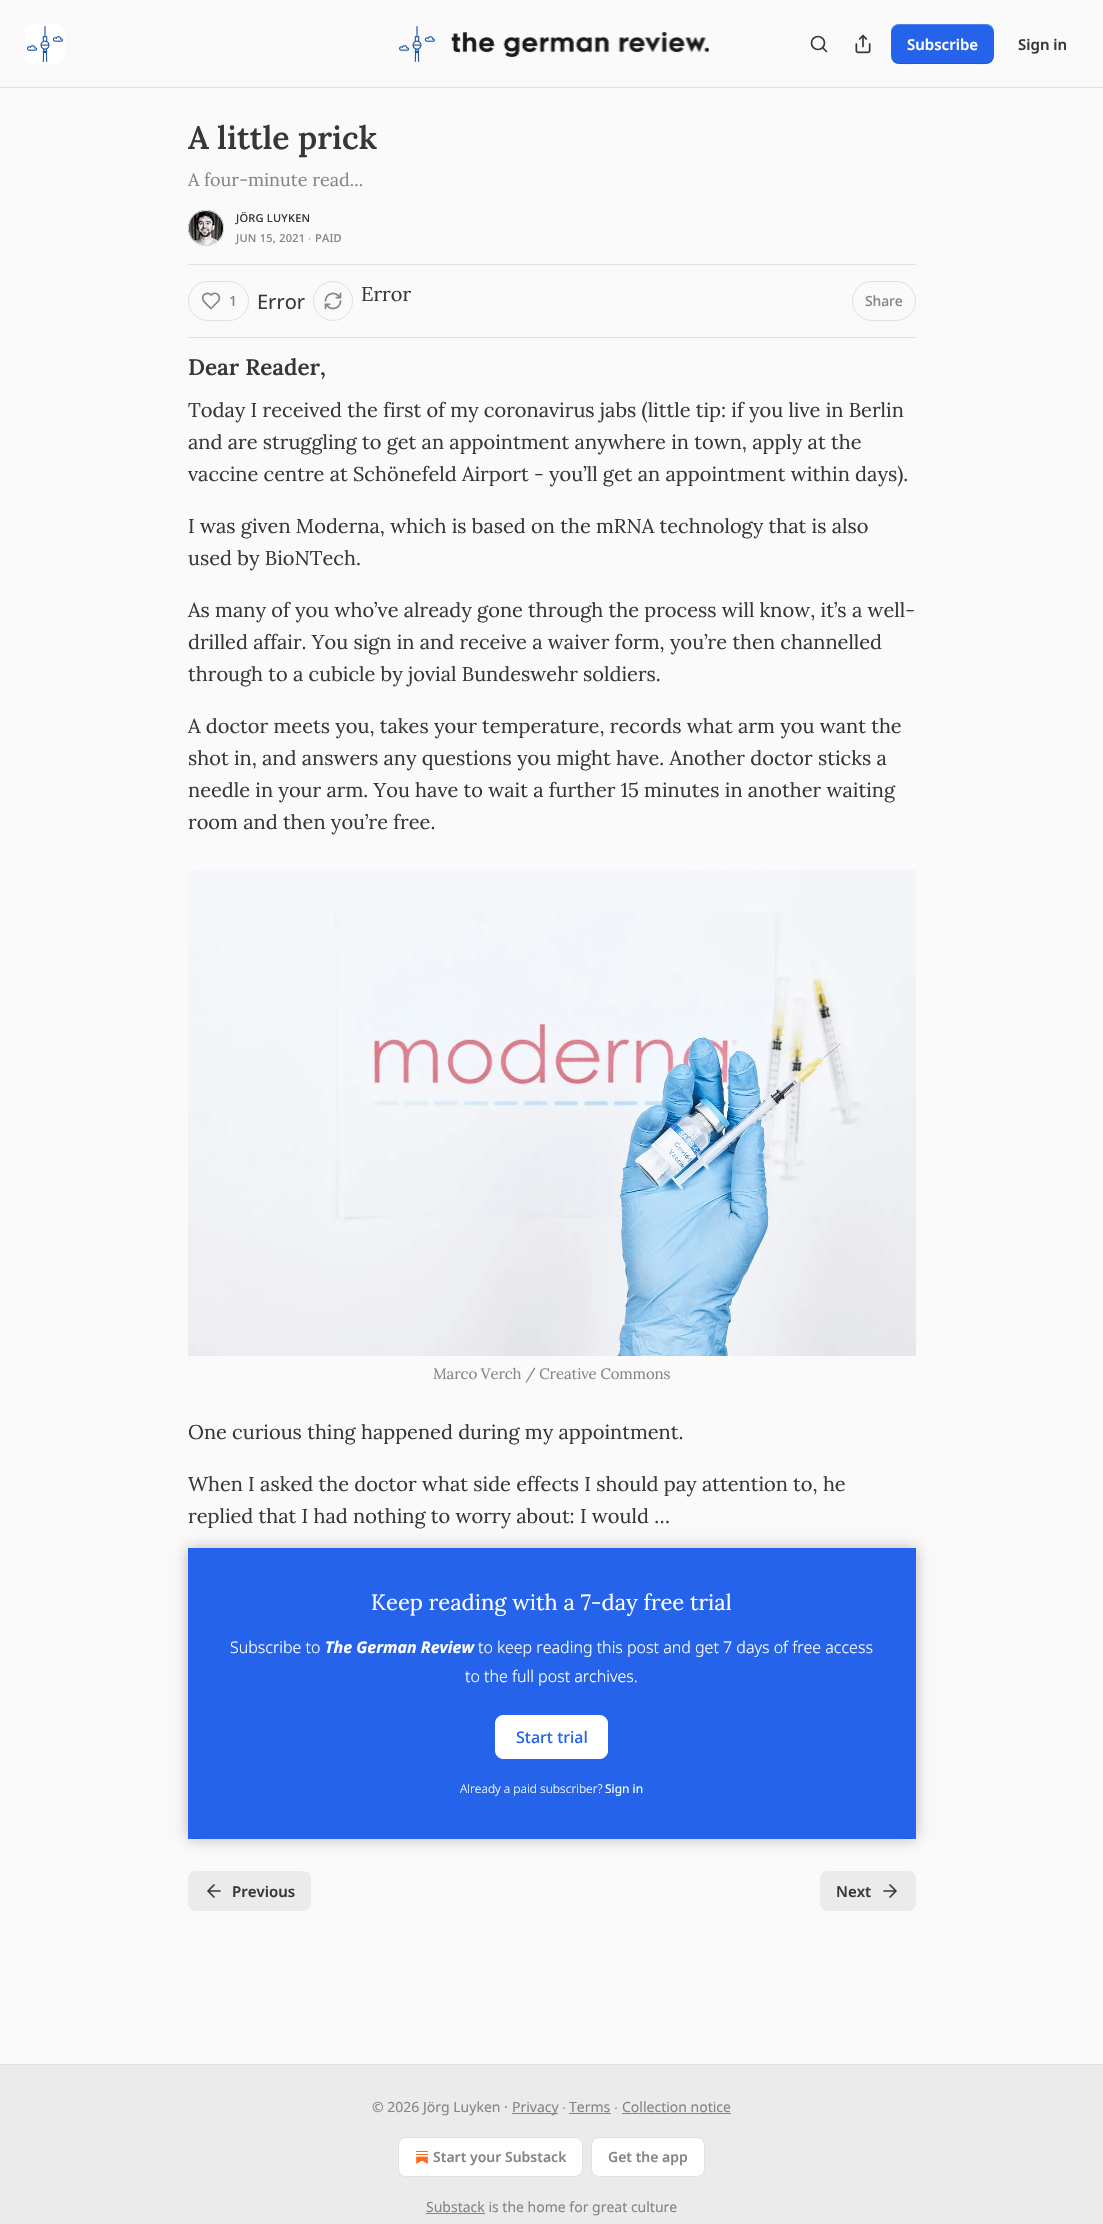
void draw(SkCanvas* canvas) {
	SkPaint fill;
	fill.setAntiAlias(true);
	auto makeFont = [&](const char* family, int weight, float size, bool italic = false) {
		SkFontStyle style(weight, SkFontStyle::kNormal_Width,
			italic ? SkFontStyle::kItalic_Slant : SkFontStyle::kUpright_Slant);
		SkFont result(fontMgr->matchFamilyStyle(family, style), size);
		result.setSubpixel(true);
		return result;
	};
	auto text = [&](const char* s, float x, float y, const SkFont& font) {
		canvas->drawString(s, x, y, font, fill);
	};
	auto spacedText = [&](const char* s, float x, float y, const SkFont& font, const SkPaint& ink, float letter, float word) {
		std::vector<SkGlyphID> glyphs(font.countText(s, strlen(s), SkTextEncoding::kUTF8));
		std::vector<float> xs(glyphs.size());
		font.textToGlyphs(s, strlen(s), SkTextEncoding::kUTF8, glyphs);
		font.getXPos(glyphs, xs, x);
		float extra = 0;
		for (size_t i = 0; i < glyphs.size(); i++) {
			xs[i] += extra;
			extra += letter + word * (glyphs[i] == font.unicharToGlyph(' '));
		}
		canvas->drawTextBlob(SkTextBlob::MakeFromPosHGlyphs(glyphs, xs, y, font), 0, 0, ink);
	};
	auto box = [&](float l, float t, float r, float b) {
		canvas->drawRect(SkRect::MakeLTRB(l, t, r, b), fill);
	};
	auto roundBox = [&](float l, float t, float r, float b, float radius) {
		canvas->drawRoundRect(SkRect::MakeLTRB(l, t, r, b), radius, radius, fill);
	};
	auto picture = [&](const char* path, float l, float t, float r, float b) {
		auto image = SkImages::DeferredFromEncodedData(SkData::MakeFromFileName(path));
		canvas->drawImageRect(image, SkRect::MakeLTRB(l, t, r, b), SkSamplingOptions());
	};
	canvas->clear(0xFFFAFAFA);
	fill.setColor(0xFFE1E1E1);
	box(0, 87, 1103, 88);
	fill.setColor(0xFFFFFFFF);
	roundBox(25, 24, 65, 64, 8);
	picture("image0.png", 27, 26, 63, 62);
	picture("image1.png", 399, 26, 709, 62);
	fill.setStyle(SkPaint::kStroke_Style);
	fill.setStrokeWidth(1.7f);
	fill.setColor(0xFF363737);
	canvas->drawCircle(818, 43, 6.5f, fill);
	fill.setStrokeCap(SkPaint::kRound_Cap);
	fill.setStrokeJoin(SkPaint::kRound_Join);
	canvas->drawPath(SkPathBuilder().moveTo(826.5f, 51.5f).lineTo(823, 48).detach(), fill);
	picture("image2.png", 855, 34, 871, 54);
	fill.setStyle(SkPaint::kFill_Style);
	fill.setColor(0xFF2563EB);
	roundBox(891, 24, 994, 64, 8);
	fill.setColor(0x1A000000);
	canvas->drawPath(SkPathBuilder().moveTo(891, 55).cubicTo(891, 67, 905, 64, 914, 64).lineTo(972, 64).cubicTo(980, 64, 994, 67, 994, 55).cubicTo(994, 59, 990, 63, 986, 63).lineTo(899, 63).cubicTo(895, 63, 891, 59, 891, 55).close().detach(), fill);
	fill.setColor(0x33FFFFFF);
	canvas->drawPath(SkPathBuilder().moveTo(899, 25).lineTo(986, 25).cubicTo(990, 25, 994, 29, 994, 33).cubicTo(994, 21, 980, 24, 972, 24).lineTo(914, 24).cubicTo(905, 24, 891, 21, 891, 33).cubicTo(891, 29, 895, 25, 899, 25).close().detach(), fill);
	fill.setStyle(SkPaint::kStroke_Style);
	fill.setStrokeWidth(1);
	fill.setStrokeCap(SkPaint::kButt_Cap);
	fill.setStrokeJoin(SkPaint::kMiter_Join);
	fill.setColor(0xFFE1E1E1);
	canvas->drawCircle(206, 228, 17.5f, fill);
	picture("image3.png", 188, 210, 224, 246);
	canvas->drawCircle(206, 228, 17.5f, fill);
	fill.setStyle(SkPaint::kFill_Style);
	box(188, 264, 916, 265);
	box(188, 337, 916, 338);
	fill.setStyle(SkPaint::kStroke_Style);
	canvas->drawRoundRect(SkRect::MakeLTRB(188.5f, 281.5f, 248.5f, 320.5f), 19.5f, 19.5f, fill);
	fill.setStrokeWidth(1.7f);
	fill.setStrokeCap(SkPaint::kRound_Cap);
	fill.setStrokeJoin(SkPaint::kRound_Join);
	fill.setColor(0xFF848585);
	canvas->drawPath(SkPathBuilder().moveTo(217, 302.5f).cubicTo(223, 296.5f, 216, 290.5f, 211, 295).cubicTo(207.5f, 291.5f, 201.5f, 294.5f, 203, 299.5f).cubicTo(204, 302.5f, 209, 306.5f, 211, 308.5f).close().detach(), fill);
	fill.setStrokeWidth(1);
	fill.setStrokeCap(SkPaint::kButt_Cap);
	fill.setStrokeJoin(SkPaint::kMiter_Join);
	fill.setColor(0xFFE1E1E1);
	canvas->drawCircle(333, 301, 19.5f, fill);
	picture("image4.png", 324, 292, 342, 310);
	canvas->drawRoundRect(SkRect::MakeLTRB(852.5f, 281.5f, 915.5f, 320.5f), 19.5f, 19.5f, fill);
	picture("image5.png", 188, 870, 916, 1356);
	fill.setStyle(SkPaint::kFill_Style);
	fill.setColor(0xFF2563EB);
	box(188, 1548, 916, 1839);
	fill.setColor(0xFFFFFFFF);
	canvas->drawRoundRect(SkRect::MakeLTRB(495.5f, 1715.5f, 607.5f, 1758.5f), 7.5f, 7.5f, fill);
	fill.setStyle(SkPaint::kStroke_Style);
	canvas->drawRoundRect(SkRect::MakeLTRB(495.5f, 1715.5f, 607.5f, 1758.5f), 7.5f, 7.5f, fill);
	canvas->save();
	canvas->clipPath(SkPathBuilder(SkPathFillType::kEvenOdd).moveTo(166, 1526).lineTo(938, 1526).lineTo(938, 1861).lineTo(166, 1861).close().moveTo(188, 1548).lineTo(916, 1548).lineTo(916, 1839).lineTo(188, 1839).close().detach(), true);
	fill.setStyle(SkPaint::kFill_Style);
	fill.setColor(0x40000000);
	fill.setMaskFilter(SkMaskFilter::MakeBlur(kNormal_SkBlurStyle, 7));
	canvas->drawRect(SkRect::MakeLTRB(188, 1548, 916, 1839), fill);
	fill.setMaskFilter(nullptr);
	canvas->restore();
	fill.setColor(0xFFEBEBEB);
	roundBox(188, 1871, 311, 1911, 8);
	fill.setStyle(SkPaint::kStroke_Style);
	fill.setStrokeWidth(1.7f);
	fill.setStrokeCap(SkPaint::kRound_Cap);
	fill.setStrokeJoin(SkPaint::kRound_Join);
	fill.setColor(0xFF363737);
	canvas->drawPath(SkPathBuilder().moveTo(214, 1897).lineTo(208, 1891).lineTo(214, 1885).moveTo(220, 1891).lineTo(208, 1891).detach(), fill);
	fill.setStyle(SkPaint::kFill_Style);
	fill.setColor(0xFFEBEBEB);
	roundBox(820, 1871, 916, 1911, 8);
	fill.setStyle(SkPaint::kStroke_Style);
	fill.setColor(0xFF363737);
	canvas->drawPath(SkPathBuilder().moveTo(884, 1891).lineTo(896, 1891).moveTo(890, 1885).lineTo(896, 1891).lineTo(890, 1897).detach(), fill);
	fill.setStyle(SkPaint::kFill_Style);
	fill.setColor(0xFFEBEBEB);
	box(0, 2065, 1103, 2224);
	fill.setColor(0xFFE1E1E1);
	box(0, 2064, 1103, 2065);
	fill.setColor(0xFF848585);
	box(512, 2113, 558, 2114);
	box(569, 2113, 611, 2114);
	box(622, 2113, 731, 2114);
	fill.setColor(0xFFFFFFFF);
	canvas->drawRoundRect(SkRect::MakeLTRB(398.5f, 2137.5f, 582.5f, 2176.5f), 7.5f, 7.5f, fill);
	fill.setStyle(SkPaint::kStroke_Style);
	fill.setStrokeWidth(1);
	fill.setStrokeCap(SkPaint::kButt_Cap);
	fill.setStrokeJoin(SkPaint::kMiter_Join);
	fill.setColor(0xFFE1E1E1);
	canvas->drawRoundRect(SkRect::MakeLTRB(398.5f, 2137.5f, 582.5f, 2176.5f), 7.5f, 7.5f, fill);
	picture("image6.png", 416, 2151, 428, 2164);
	fill.setStyle(SkPaint::kFill_Style);
	fill.setColor(0xFFFFFFFF);
	canvas->drawRoundRect(SkRect::MakeLTRB(591.5f, 2137.5f, 704.5f, 2176.5f), 7.5f, 7.5f, fill);
	fill.setStyle(SkPaint::kStroke_Style);
	fill.setColor(0xFFE1E1E1);
	canvas->drawRoundRect(SkRect::MakeLTRB(591.5f, 2137.5f, 704.5f, 2176.5f), 7.5f, 7.5f, fill);
	fill.setStyle(SkPaint::kFill_Style);
	fill.setColor(0xFF848585);
	box(426, 2213, 485, 2214);
	auto font1 = makeFont("Noto Sans", 600, 15);
	fill.setColor(0xFFFFFFFF);
	text("Subscribe", 907, 50, font1);
	fill.setColor(0xFF363737);
	text("Sign in", 1018, 50, font1);
	auto font2 = makeFont("Lora", 600, 32);
	text("A little prick", 188, 149, font2);
	auto font3 = makeFont("Lora", 400, 18);
	fill.setColor(0xFF848585);
	text("A four-minute read...", 188, 186, font3);
	auto font4 = makeFont("Noto Sans", 500, 11);
	fill.setColor(0xFF363737);
	spacedText("JÖRG LUYKEN", 236, 222, font4, fill, 0.25f, 0);
	fill.setColor(0xFF848585);
	spacedText("JUN 15, 2021", 236, 242, font4, fill, 0.25f, 0);
	auto font5 = makeFont("Liberation Sans", 400, 11);
	spacedText("∙", 308, 242, font5, fill, 0.25f, 0);
	spacedText("PAID", 315, 242, font4, fill, 0.25f, 0);
	auto font6 = makeFont("Noto Sans", 500, 14);
	spacedText("1", 229, 306, font6, fill, -0.15f, 0);
	auto font7 = makeFont("Noto Sans", 400, 20);
	fill.setColor(0xFF363737);
	text("Error", 257, 309, font7);
	auto font8 = makeFont("Lora", 400, 20);
	text("Error", 361, 301, font8);
	fill.setColor(0xFF848585);
	spacedText("Share", 865, 306, font6, fill, -0.15f, 0);
	auto font9 = makeFont("Lora", 600, 22.5f);
	fill.setColor(0xFF363737);
	text("Dear Reader,", 188, 375, font9);
	text("Today I received the first of my coronavirus jabs (little tip: if you live in Berlin", 188, 417, font8);
	text("and are struggling to get an appointment anywhere in town, apply at the", 188, 449, font8);
	text("vaccine centre at Schönefeld Airport - you’ll get an appointment within days).", 188, 481, font8);
	text("I was given Moderna, which is based on the mRNA technology that is also", 188, 533, font8);
	text("used by BioNTech.", 188, 565, font8);
	text("As many of you who’ve already gone through the process will know, it’s a well-", 188, 617, font8);
	text("drilled affair. You sign in and receive a waiver form, you’re then channelled", 188, 649, font8);
	text("through to a cubicle by jovial Bundeswehr soldiers.", 188, 681, font8);
	text("A doctor meets you, takes your temperature, records what arm you want the", 188, 733, font8);
	text("shot in, and answers any questions you might have. Another doctor sticks a", 188, 765, font8);
	text("needle in your arm. You have to wait a further 15 minutes in another waiting", 188, 797, font8);
	text("room and then you’re free.", 188, 829, font8);
	auto font10 = makeFont("Lora", 400, 15);
	fill.setColor(0xFF848585);
	spacedText("Marco Verch / Creative Commons", 433, 1379, font10, fill, -0.15f, 0);
	fill.setColor(0xFF363737);
	text("One curious thing happened during my appointment.", 188, 1439, font8);
	text("When I asked the doctor what side effects I should pay attention to, he", 188, 1491, font8);
	text("replied that I had nothing to worry about: I would …", 188, 1523, font8);
	auto font11 = makeFont("Lora", 400, 22);
	fill.setColor(0xFFFFFFFF);
	text("Keep reading with a 7-day free trial", 371, 1610, font11);
	auto font12 = makeFont("Noto Sans", 300, 16);
	text("Subscribe to", 230, 1653, font12);
	auto font13 = makeFont("Noto Sans", 700, 16, true);
	text("The German Review", 325, 1653, font13);
	text("to keep reading this post and get 7 days of free access", 478, 1653, font12);
	text("to the full post archives.", 465, 1682, font12);
	auto font14 = makeFont("Noto Sans", 500, 16);
	fill.setColor(0xFF2563EB);
	text("Start trial", 516, 1743, font14);
	auto font15 = makeFont("Noto Sans", 300, 12);
	fill.setColor(0xFFFFFFFF);
	text("Already a paid subscriber?", 460, 1793, font15);
	auto font16 = makeFont("Noto Sans", 400, 12);
	text("Sign in", 605, 1793, font16);
	fill.setColor(0xFF363737);
	text("Previous", 232, 1897, font1);
	text("Next", 836, 1897, font1);
	auto font17 = makeFont("Noto Sans", 400, 14);
	fill.setColor(0xFF848585);
	text("© 2026 Jörg Luyken ·", 372, 2112, font17);
	text("Privacy", 512, 2112, font17);
	auto font18 = makeFont("Liberation Sans", 400, 14);
	text("∙", 562, 2112, font18);
	text("Terms", 569, 2112, font17);
	text("∙", 614, 2112, font18);
	text("Collection notice", 622, 2112, font17);
	auto font19 = makeFont("Noto Sans", 600, 14);
	text("Start your Substack", 433, 2162, font19);
	text("Get the app", 608, 2162, font19);
	text("Substack is the home for great culture", 426, 2212, font17);
}
